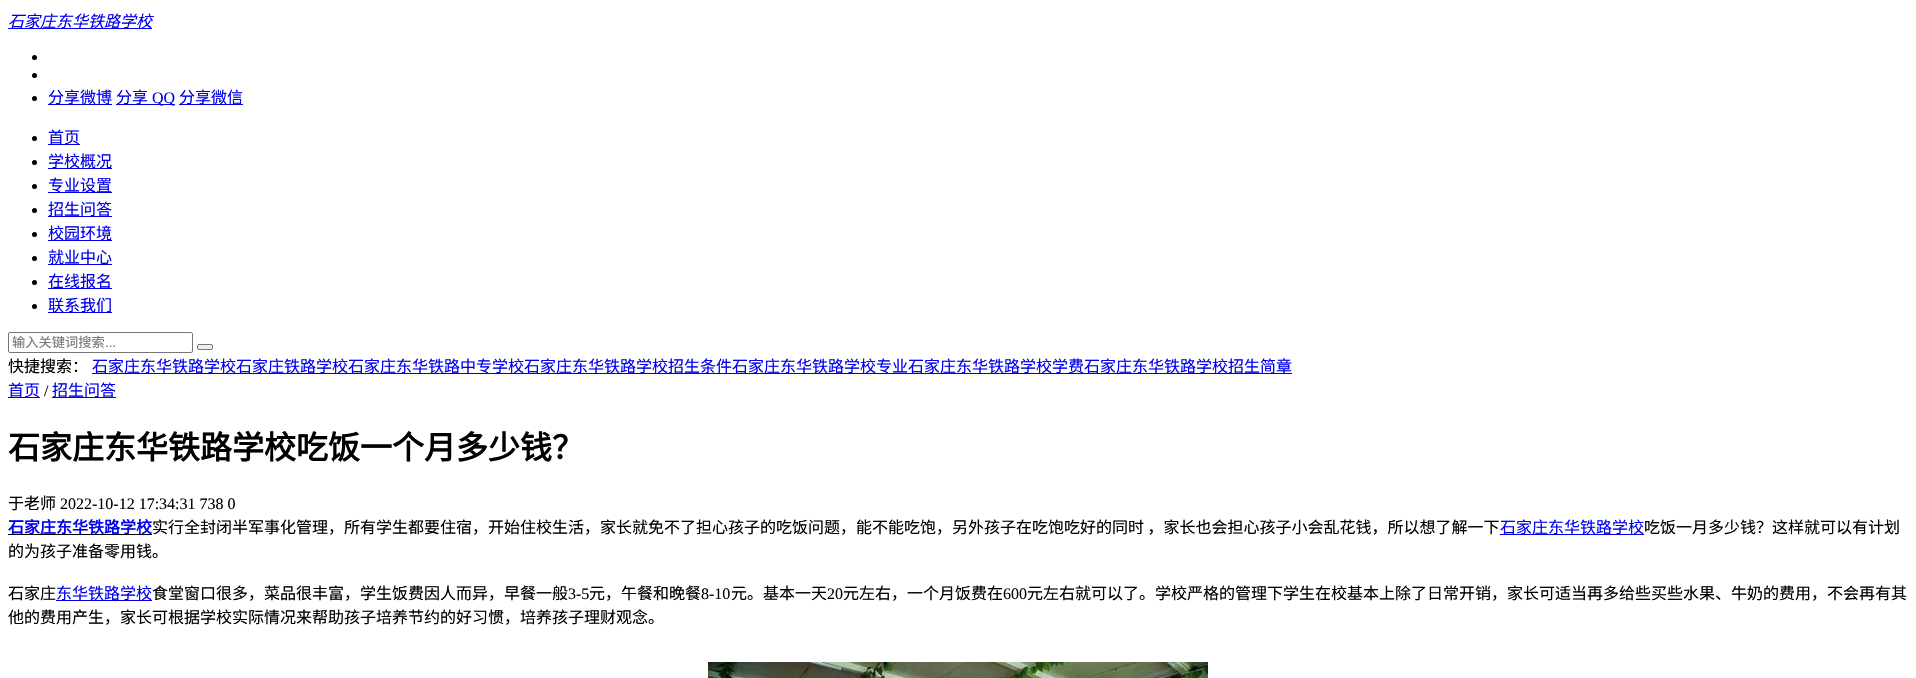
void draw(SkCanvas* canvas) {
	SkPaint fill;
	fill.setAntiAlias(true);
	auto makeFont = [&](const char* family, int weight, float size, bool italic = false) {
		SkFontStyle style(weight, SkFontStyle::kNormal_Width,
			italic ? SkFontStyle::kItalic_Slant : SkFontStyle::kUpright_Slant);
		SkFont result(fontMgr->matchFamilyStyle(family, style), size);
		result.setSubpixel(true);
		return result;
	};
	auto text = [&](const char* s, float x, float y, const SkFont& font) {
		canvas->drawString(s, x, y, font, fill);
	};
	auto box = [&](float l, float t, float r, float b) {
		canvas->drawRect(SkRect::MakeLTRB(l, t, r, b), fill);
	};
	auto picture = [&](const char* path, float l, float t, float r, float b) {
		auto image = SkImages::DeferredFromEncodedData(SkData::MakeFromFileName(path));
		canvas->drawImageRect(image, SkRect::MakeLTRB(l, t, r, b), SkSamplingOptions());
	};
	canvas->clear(0xFFFFFFFF);
	fill.setColor(0xFF0000EE);
	box(8, 28, 152, 29);
	fill.setColor(0xFF000000);
	canvas->drawCircle(34.5f, 57.5f, 2.5f, fill);
	canvas->drawCircle(34.5f, 75.5f, 2.5f, fill);
	canvas->drawCircle(34.5f, 98.5f, 2.5f, fill);
	fill.setColor(0xFF0000EE);
	box(48, 104, 112, 105);
	box(116, 104, 175, 105);
	box(179, 104, 243, 105);
	fill.setColor(0xFF000000);
	canvas->drawCircle(34.5f, 138.5f, 2.5f, fill);
	fill.setColor(0xFF0000EE);
	box(48, 144, 80, 145);
	fill.setColor(0xFF000000);
	canvas->drawCircle(34.5f, 162.5f, 2.5f, fill);
	fill.setColor(0xFF0000EE);
	box(48, 168, 112, 169);
	fill.setColor(0xFF000000);
	canvas->drawCircle(34.5f, 186.5f, 2.5f, fill);
	fill.setColor(0xFF0000EE);
	box(48, 192, 112, 193);
	fill.setColor(0xFF000000);
	canvas->drawCircle(34.5f, 210.5f, 2.5f, fill);
	fill.setColor(0xFF0000EE);
	box(48, 216, 112, 217);
	fill.setColor(0xFF000000);
	canvas->drawCircle(34.5f, 234.5f, 2.5f, fill);
	fill.setColor(0xFF0000EE);
	box(48, 240, 112, 241);
	fill.setColor(0xFF000000);
	canvas->drawCircle(34.5f, 258.5f, 2.5f, fill);
	fill.setColor(0xFF0000EE);
	box(48, 264, 112, 265);
	fill.setColor(0xFF000000);
	canvas->drawCircle(34.5f, 282.5f, 2.5f, fill);
	fill.setColor(0xFF0000EE);
	box(48, 288, 112, 289);
	fill.setColor(0xFF000000);
	canvas->drawCircle(34.5f, 306.5f, 2.5f, fill);
	fill.setColor(0xFF0000EE);
	box(48, 312, 112, 313);
	fill.setStyle(SkPaint::kStroke_Style);
	fill.setStrokeWidth(1);
	fill.setColor(0xFF767676);
	canvas->drawRoundRect(SkRect::MakeLTRB(8.5f, 332.5f, 192.5f, 352.5f), 1.5f, 1.5f, fill);
	fill.setStyle(SkPaint::kFill_Style);
	fill.setColor(0xFFEFEFEF);
	canvas->drawRoundRect(SkRect::MakeLTRB(197.5f, 344.5f, 212.5f, 349.5f), 1.5f, 1.5f, fill);
	fill.setStyle(SkPaint::kStroke_Style);
	fill.setColor(0xFF767676);
	canvas->drawRoundRect(SkRect::MakeLTRB(197.5f, 344.5f, 212.5f, 349.5f), 1.5f, 1.5f, fill);
	fill.setStyle(SkPaint::kFill_Style);
	fill.setColor(0xFF0000EE);
	box(92, 373, 1292, 374);
	box(8, 397, 40, 398);
	box(52, 397, 116, 398);
	fill.setColor(0xFF000000);
	box(8, 534, 152, 535);
	fill.setColor(0xFF0000EE);
	box(1500, 534, 1644, 535);
	box(56, 600, 152, 601);
	picture("image0.png", 708, 662, 1208, 678);
	auto font1 = makeFont("Noto Sans CJK SC", 400, 16, true);
	text("石家庄东华铁路学校", 8, 27, font1);
	auto font2 = makeFont("Noto Sans CJK SC", 400, 16);
	text("分享微博", 48, 103, font2);
	text("分享", 116, 103, font2);
	auto font3 = makeFont("Liberation Serif", 400, 16);
	text("QQ", 152, 103, font3);
	text("分享微信", 179, 103, font2);
	text("首页", 48, 143, font2);
	text("学校概况", 48, 167, font2);
	text("专业设置", 48, 191, font2);
	text("招生问答", 48, 215, font2);
	text("校园环境", 48, 239, font2);
	text("就业中心", 48, 263, font2);
	text("在线报名", 48, 287, font2);
	text("联系我们", 48, 311, font2);
	auto font4 = makeFont("Noto Sans CJK SC", 400, 13.25f);
	fill.setColor(0xFF757575);
	text("输入关键词搜索", 12, 347, font4);
	auto font5 = makeFont("Liberation Sans", 400, 13.25f);
	text("...", 105, 347, font5);
	fill.setColor(0xFF000000);
	text("快捷搜索：", 8, 372, font2);
	fill.setColor(0xFF0000EE);
	text("石家庄东华铁路学校石家庄铁路学校石家庄东华铁路中专学校石家庄东华铁路学校招生条件石家庄东华铁路学校专业石家庄东华铁路学校学费石家庄东华铁路学校招生简章", 92, 372, font2);
	text("首页", 8, 396, font2);
	fill.setColor(0xFF000000);
	text("/", 44, 396, font3);
	fill.setColor(0xFF0000EE);
	text("招生问答", 52, 396, font2);
	auto font6 = makeFont("Noto Sans CJK SC", 700, 32);
	fill.setColor(0xFF000000);
	text("石家庄东华铁路学校吃饭一个月多少钱？", 8, 459, font6);
	text("于老师", 8, 509, font2);
	text("2022-10-12 17:34:31 738 0", 60, 509, font3);
	auto font7 = makeFont("Noto Sans CJK SC", 700, 16);
	fill.setColor(0xFF0000EE);
	text("石家庄东华铁路学校", 8, 533, font7);
	fill.setColor(0xFF000000);
	text("实行全封闭半军事化管理，所有学生都要住宿，开始住校生活，家长就免不了担心孩子的吃饭问题，能不能吃饱，另外孩子在吃饱吃好的同时 ，家长也会担心孩子小会乱花钱，所以想了解一下", 152, 533, font2);
	fill.setColor(0xFF0000EE);
	text("石家庄东华铁路学校", 1500, 533, font2);
	fill.setColor(0xFF000000);
	text("吃饭一月多少钱？这样就可以有计划", 1644, 533, font2);
	text("的为孩子准备零用钱。", 8, 557, font2);
	text("石家庄", 8, 599, font2);
	fill.setColor(0xFF0000EE);
	text("东华铁路学校", 56, 599, font2);
	fill.setColor(0xFF000000);
	text("食堂窗口很多，菜品很丰富，学生饭费因人而异，早餐一般", 152, 599, font2);
	text("3-5", 568, 599, font3);
	text("元，午餐和晚餐", 589, 599, font2);
	text("8-10", 701, 599, font3);
	text("元。基本一天", 731, 599, font2);
	text("20", 827, 599, font3);
	text("元左右，一个月饭费在", 843, 599, font2);
	text("600", 1003, 599, font3);
	text("元左右就可以了。学校严格的管理下学生在校基本上除了日常开销，家长可适当再多给些买些水果、牛奶的费用，不会再有其", 1027, 599, font2);
	text("他的费用产生，家长可根据学校实际情况来帮助孩子培养节约的好习惯，培养孩子理财观念。", 8, 623, font2);
}
